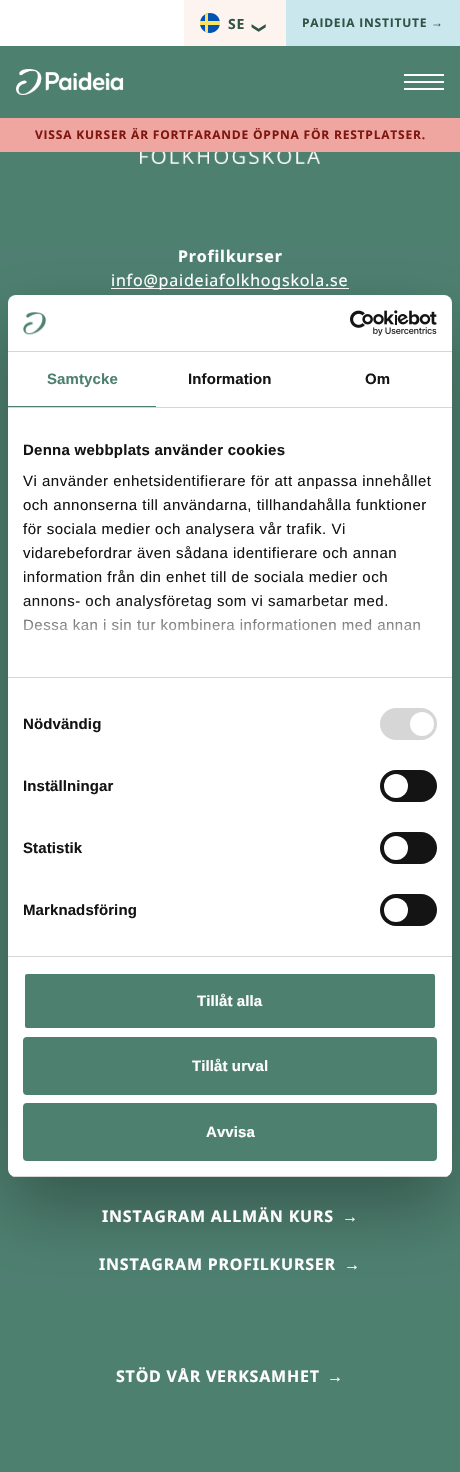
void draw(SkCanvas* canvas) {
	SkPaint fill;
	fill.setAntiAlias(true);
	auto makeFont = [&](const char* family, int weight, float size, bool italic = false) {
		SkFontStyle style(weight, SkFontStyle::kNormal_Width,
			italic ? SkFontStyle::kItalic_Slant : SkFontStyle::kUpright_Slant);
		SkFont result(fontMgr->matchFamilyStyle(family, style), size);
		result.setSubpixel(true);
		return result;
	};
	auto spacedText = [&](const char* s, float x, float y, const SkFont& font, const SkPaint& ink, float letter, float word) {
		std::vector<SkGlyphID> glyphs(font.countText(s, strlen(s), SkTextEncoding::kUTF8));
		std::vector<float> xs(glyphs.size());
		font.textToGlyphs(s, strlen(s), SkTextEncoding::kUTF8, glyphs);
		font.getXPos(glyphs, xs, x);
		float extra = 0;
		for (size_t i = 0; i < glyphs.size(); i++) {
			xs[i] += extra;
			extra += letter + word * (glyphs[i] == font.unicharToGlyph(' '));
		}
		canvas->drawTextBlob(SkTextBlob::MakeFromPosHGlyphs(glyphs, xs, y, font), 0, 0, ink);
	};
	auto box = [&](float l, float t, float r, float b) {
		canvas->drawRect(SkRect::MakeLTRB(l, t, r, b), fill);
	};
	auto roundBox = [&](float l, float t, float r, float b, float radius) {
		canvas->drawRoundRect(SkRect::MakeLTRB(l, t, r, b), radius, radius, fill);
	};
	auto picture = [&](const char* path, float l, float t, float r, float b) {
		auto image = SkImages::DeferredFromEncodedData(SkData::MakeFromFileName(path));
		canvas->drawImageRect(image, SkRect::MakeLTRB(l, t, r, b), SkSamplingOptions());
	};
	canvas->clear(0xFFFFFFFF);
	fill.setColor(0xFF4E8070);
	canvas->drawPath(SkPathBuilder().moveTo(0, -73).lineTo(115, -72).lineTo(262, -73).lineTo(386, -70).lineTo(460, -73).lineTo(460, 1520).lineTo(0, 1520).close().detach(), fill);
	fill.setColor(0xFFFFFFFF);
	box(0, 0, 184, 46);
	fill.setColor(0xFFFEF4EF);
	box(184, 0, 286, 46);
	fill.setColor(0xFF0052B4);
	canvas->drawPath(SkPathBuilder().moveTo(210, 13).cubicTo(222.5f, 13, 224, 31.5f, 210.5f, 33).cubicTo(209, 33, 207, 32.5f, 206, 32).cubicTo(196, 28, 199.5f, 13, 210, 13).close().detach(), fill);
	fill.setColor(0xFFFFE15A);
	canvas->drawPath(SkPathBuilder().moveTo(205, 14.5f).lineTo(205, 31.5f).lineTo(208, 33).lineTo(208, 13).close().detach(), fill);
	canvas->drawPath(SkPathBuilder().moveTo(200, 25).lineTo(220, 25).cubicTo(220, 23.5f, 220, 22.5f, 220, 21).lineTo(200, 21).cubicTo(200, 22.5f, 200, 23.5f, 200, 25).close().detach(), fill);
	fill.setColor(0xFFC9E7ED);
	box(286, 0, 460, 46);
	picture("image0.png", 16, 69, 124, 95);
	fill.setColor(0xFFFFFFFF);
	box(404, 74, 444, 76);
	box(404, 81, 444, 83);
	box(404, 88, 444, 90);
	fill.setColor(0xFFEFA5A0);
	box(0, 118, 460, 152);
	picture("image1.png", 140, 152, 320, 164);
	fill.setColor(0xFFFFFFFF);
	box(111, 288, 349, 289);
	fill.setColor(0x4D000000);
	fill.setMaskFilter(SkMaskFilter::MakeBlur(kNormal_SkBlurStyle, 34));
	canvas->drawRoundRect(SkRect::MakeLTRB(8, 327, 452, 1209), 8, 8, fill);
	fill.setMaskFilter(nullptr);
	fill.setColor(0xFFFFFFFF);
	roundBox(8, 295, 452, 1177, 8);
	fill.setColor(0xFFD6D6D6);
	box(8, 351, 452, 352);
	picture("image2.png", 23, 312, 46, 335);
	picture("image3.png", 350, 310, 437, 336);
	box(8, 407, 452, 408);
	fill.setColor(0xFF4E8070);
	box(8, 406, 156, 407);
	fill.setColor(0xFFD6D6D6);
	box(8, 677, 452, 678);
	box(8, 956, 452, 957);
	roundBox(380, 708, 437, 740, 16);
	fill.setColor(0xFFFFFFFF);
	canvas->drawCircle(422, 724, 12, fill);
	fill.setColor(0xFF141414);
	roundBox(380, 770, 437, 802, 16);
	fill.setColor(0xFFFFFFFF);
	canvas->drawCircle(396, 786, 12, fill);
	fill.setColor(0xFF141414);
	roundBox(380, 832, 437, 864, 16);
	fill.setColor(0xFFFFFFFF);
	canvas->drawCircle(396, 848, 12, fill);
	fill.setColor(0xFF141414);
	roundBox(380, 894, 437, 926, 16);
	fill.setColor(0xFFFFFFFF);
	canvas->drawCircle(396, 910, 12, fill);
	canvas->save();
	canvas->clipPath(SkPathBuilder().moveTo(16, 295).lineTo(444, 295).cubicTo(448.5f, 295, 452, 298.5f, 452, 303).lineTo(452, 1169).cubicTo(452, 1173.5f, 448.5f, 1177, 444, 1177).lineTo(16, 1177).cubicTo(11.5f, 1177, 8, 1173.5f, 8, 1169).lineTo(8, 303).cubicTo(8, 298.5f, 11.5f, 295, 16, 295).close().detach(), true);
	fill.setColor(0xFFD6D6D6);
	box(8, 1176, 452, 1177);
	canvas->restore();
	fill.setColor(0xFF4E8070);
	canvas->drawRoundRect(SkRect::MakeLTRB(24, 973, 436, 1029), 3, 3, fill);
	fill.setStyle(SkPaint::kStroke_Style);
	fill.setStrokeWidth(2);
	fill.setColor(0xFFFFFFFF);
	canvas->drawRoundRect(SkRect::MakeLTRB(24, 973, 436, 1029), 3, 3, fill);
	fill.setStyle(SkPaint::kFill_Style);
	fill.setColor(0xFF4E8070);
	canvas->drawRoundRect(SkRect::MakeLTRB(24, 1038, 436, 1094), 3, 3, fill);
	fill.setStyle(SkPaint::kStroke_Style);
	canvas->drawRoundRect(SkRect::MakeLTRB(24, 1038, 436, 1094), 3, 3, fill);
	fill.setStyle(SkPaint::kFill_Style);
	canvas->drawRoundRect(SkRect::MakeLTRB(24, 1104, 436, 1160), 3, 3, fill);
	fill.setStyle(SkPaint::kStroke_Style);
	canvas->drawRoundRect(SkRect::MakeLTRB(24, 1104, 436, 1160), 3, 3, fill);
	auto font1 = makeFont("Open Sans", 700, 14);
	fill.setStyle(SkPaint::kFill_Style);
	fill.setColor(0xFF315345);
	spacedText("SE", 228, 29, font1, fill, 0.8f, 0);
	auto font2 = makeFont("DejaVu Sans", 400, 14);
	canvas->save();
	canvas->rotate(90, 255, 22);
	spacedText("❯", 255, 22, font2, fill, 0.8f, 0);
	canvas->restore();
	auto font3 = makeFont("Open Sans", 700, 12);
	spacedText("PAIDEIA INSTITUTE", 302, 27, font3, fill, 0.8f, 0);
	auto font4 = makeFont("Liberation Serif", 700, 12);
	spacedText("→", 431, 27, font4, fill, 0.8f, 0);
	fill.setColor(0xFF7E1710);
	spacedText("VISSA KURSER ÄR FORTFARANDE ÖPPNA FÖR RESTPLATSER.", 35, 139, font3, fill, 0.8f, 0);
	auto font5 = makeFont("Noto Sans", 700, 16);
	fill.setColor(0xFFFFFFFF);
	spacedText("Profilkurser", 178, 262, font5, fill, 0.8f, 0);
	auto font6 = makeFont("Noto Sans", 400, 16);
	spacedText("info@paideiafolkhogskola.se", 111, 286, font6, fill, 0.8f, 0);
	spacedText("INSTAGRAM ALLMÄN KURS", 102, 1222, font5, fill, 0.8f, 0);
	auto font7 = makeFont("Liberation Sans", 700, 16);
	spacedText("→", 342, 1222, font7, fill, 0.8f, 0);
	spacedText("INSTAGRAM PROFILKURSER", 99, 1270, font5, fill, 0.8f, 0);
	spacedText("→", 344, 1270, font7, fill, 0.8f, 0);
	spacedText("STÖD VÅR VERKSAMHET", 116, 1382, font5, fill, 0.8f, 0);
	spacedText("→", 327, 1382, font7, fill, 0.8f, 0);
	auto font8 = makeFont("Liberation Sans", 700, 15);
	fill.setColor(0xFF4E8070);
	spacedText("Samtycke", 47, 384, font8, fill, 0.1f, 0);
	fill.setColor(0xFF141414);
	spacedText("Information", 188, 384, font8, fill, 0.1f, 0);
	spacedText("Om", 365, 384, font8, fill, 0.1f, 0);
	spacedText("Denna webbplats använder cookies", 23, 455, font8, fill, 0.25f, 0);
	auto font9 = makeFont("Liberation Sans", 400, 15);
	spacedText("Vi använder enhetsidentifierare för att anpassa innehållet", 23, 486, font9, fill, 0.5f, 0);
	spacedText("och annonserna till användarna, tillhandahålla funktioner", 23, 510, font9, fill, 0.5f, 0);
	spacedText("för sociala medier och analysera vår trafik. Vi", 23, 534, font9, fill, 0.5f, 0);
	spacedText("vidarebefordrar även sådana identifierare och annan", 23, 558, font9, fill, 0.5f, 0);
	spacedText("information från din enhet till de sociala medier och", 23, 582, font9, fill, 0.5f, 0);
	spacedText("annons- och analysföretag som vi samarbetar med.", 23, 606, font9, fill, 0.5f, 0);
	spacedText("Dessa kan i sin tur kombinera informationen med annan", 23, 630, font9, fill, 0.5f, 0);
	{
		const SkColor colors[] = {0xFFFFFFFF, 0xCCFFFFFF, 0x00FFFFFF};
		const float stops[] = {0, 0.5f, 1};
		const SkPoint ends[] = {{224, 677}, {224, 602}};
		fill.setShader(SkGradientShader::MakeLinear(ends, colors, stops, 3, SkTileMode::kClamp));
		fill.setAlpha(255);
	}
	box(23, 603, 420, 631);
	fill.setShader(nullptr);
	fill.setColor(0xFF141414);
	spacedText("Nödvändig", 23, 729, font8, fill, 0.1f, 0);
	spacedText("Inställningar", 23, 791, font8, fill, 0.1f, 0);
	spacedText("Statistik", 23, 853, font8, fill, 0.1f, 0);
	spacedText("Marknadsföring", 23, 915, font8, fill, 0.1f, 0);
	fill.setColor(0xFFFFFFFF);
	spacedText("Tillåt alla", 197, 1006, font8, fill, 0.1f, 0);
	spacedText("Tillåt urval", 192, 1071, font8, fill, 0.1f, 0);
	spacedText("Avvisa", 206, 1137, font8, fill, 0.1f, 0);
}
